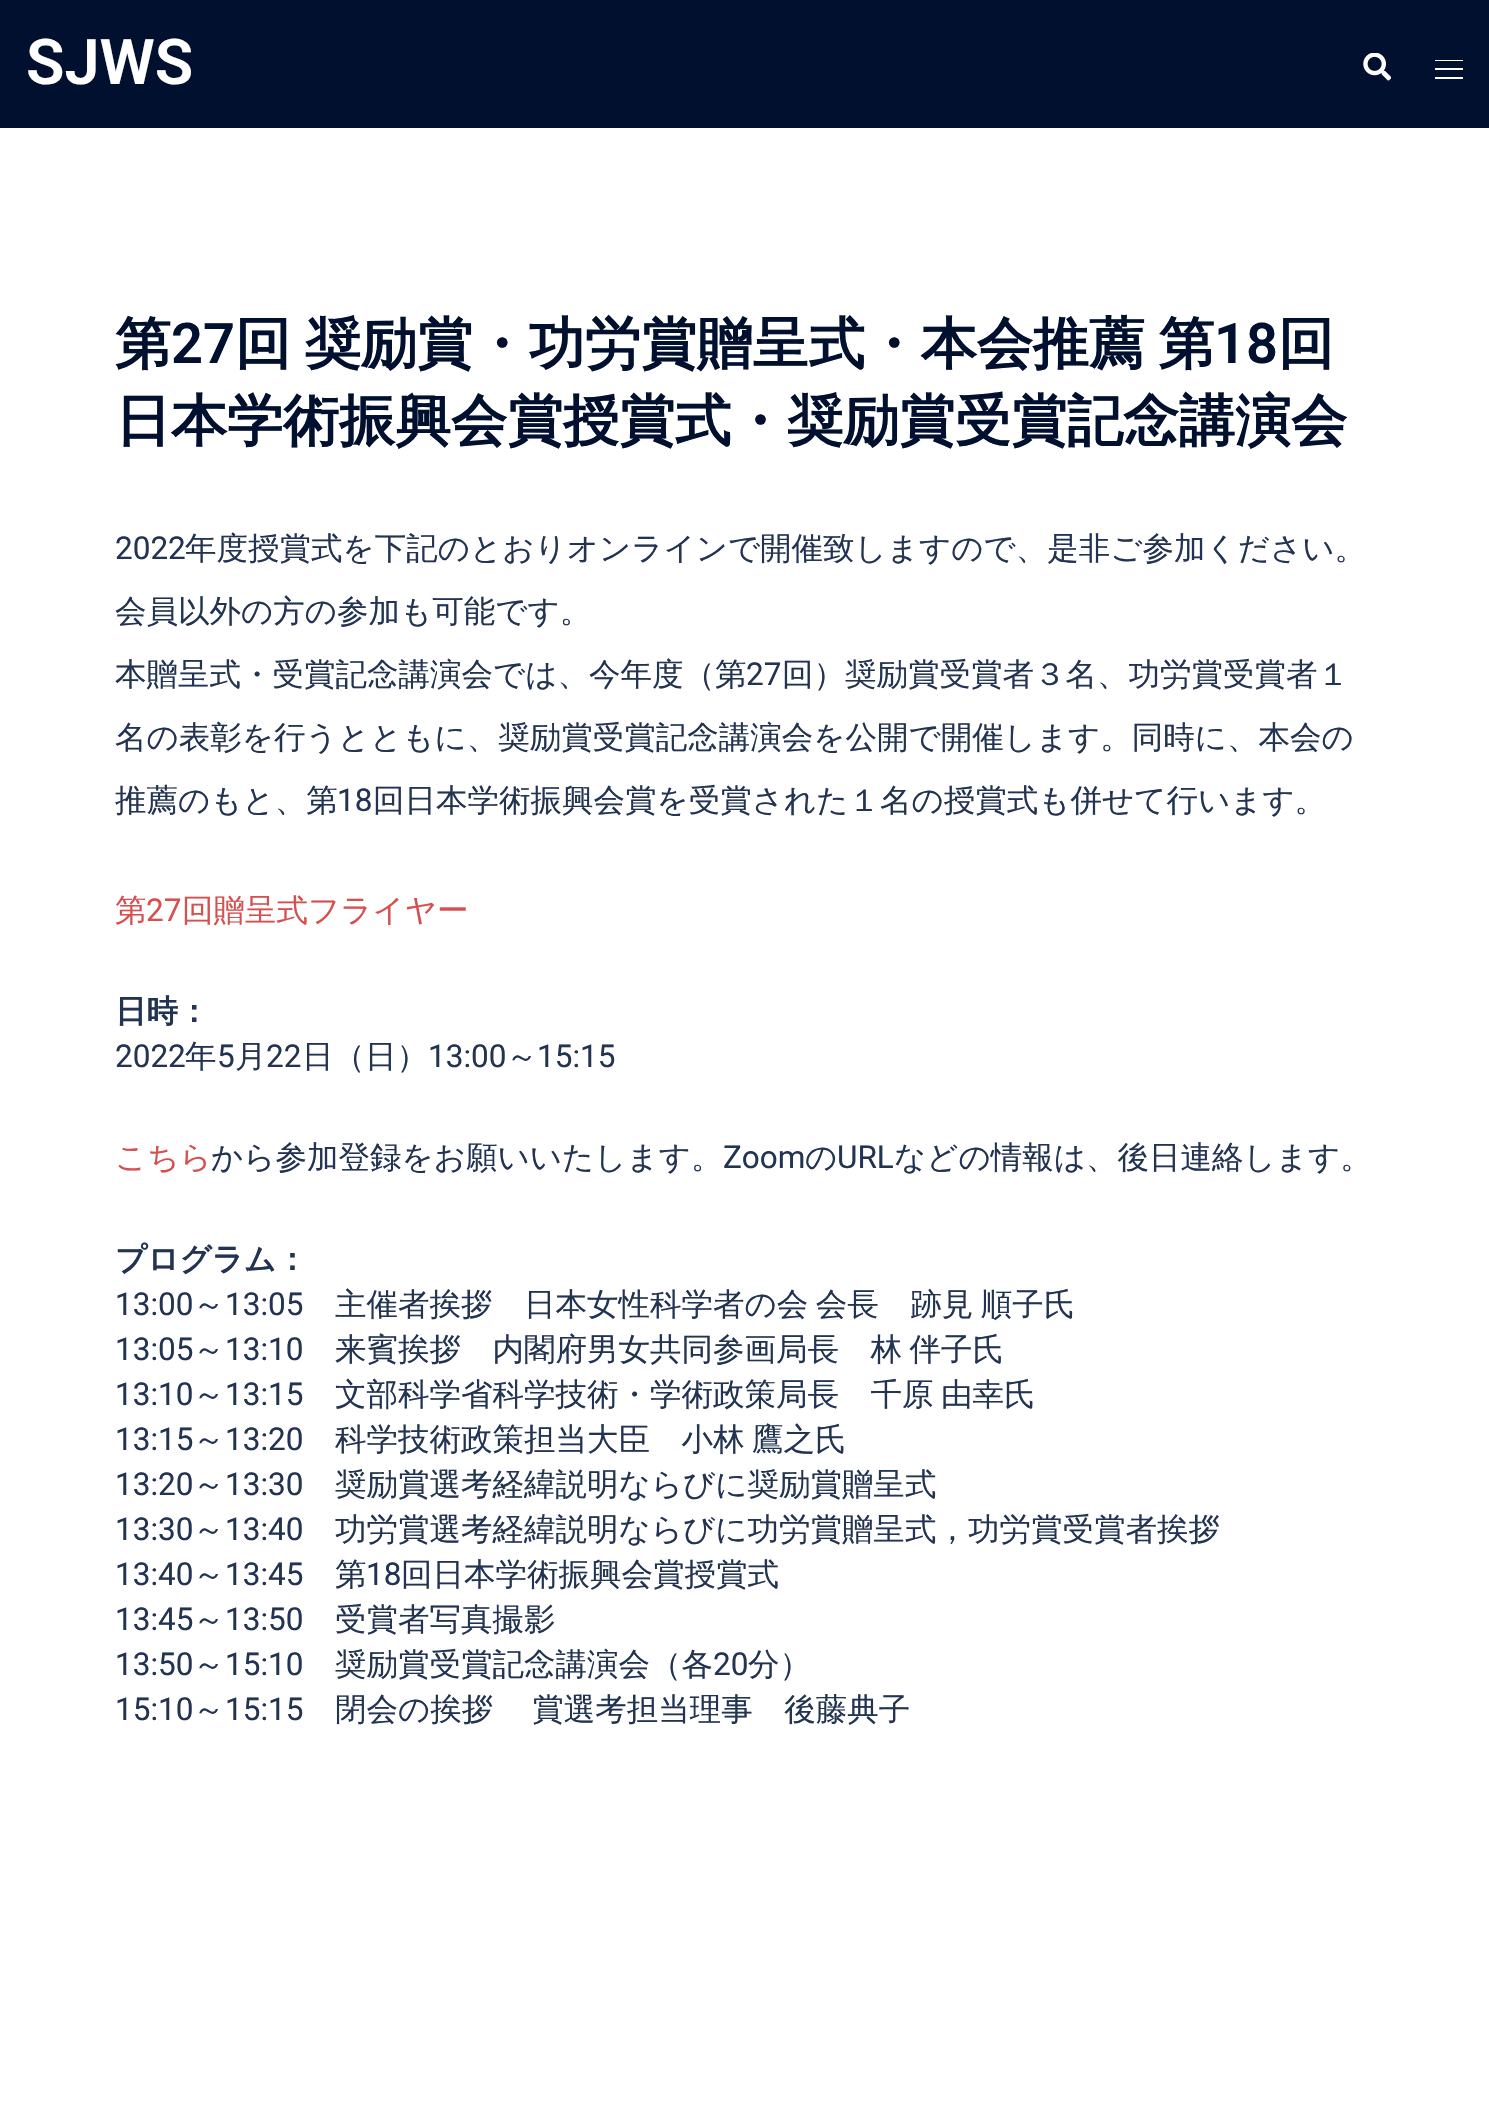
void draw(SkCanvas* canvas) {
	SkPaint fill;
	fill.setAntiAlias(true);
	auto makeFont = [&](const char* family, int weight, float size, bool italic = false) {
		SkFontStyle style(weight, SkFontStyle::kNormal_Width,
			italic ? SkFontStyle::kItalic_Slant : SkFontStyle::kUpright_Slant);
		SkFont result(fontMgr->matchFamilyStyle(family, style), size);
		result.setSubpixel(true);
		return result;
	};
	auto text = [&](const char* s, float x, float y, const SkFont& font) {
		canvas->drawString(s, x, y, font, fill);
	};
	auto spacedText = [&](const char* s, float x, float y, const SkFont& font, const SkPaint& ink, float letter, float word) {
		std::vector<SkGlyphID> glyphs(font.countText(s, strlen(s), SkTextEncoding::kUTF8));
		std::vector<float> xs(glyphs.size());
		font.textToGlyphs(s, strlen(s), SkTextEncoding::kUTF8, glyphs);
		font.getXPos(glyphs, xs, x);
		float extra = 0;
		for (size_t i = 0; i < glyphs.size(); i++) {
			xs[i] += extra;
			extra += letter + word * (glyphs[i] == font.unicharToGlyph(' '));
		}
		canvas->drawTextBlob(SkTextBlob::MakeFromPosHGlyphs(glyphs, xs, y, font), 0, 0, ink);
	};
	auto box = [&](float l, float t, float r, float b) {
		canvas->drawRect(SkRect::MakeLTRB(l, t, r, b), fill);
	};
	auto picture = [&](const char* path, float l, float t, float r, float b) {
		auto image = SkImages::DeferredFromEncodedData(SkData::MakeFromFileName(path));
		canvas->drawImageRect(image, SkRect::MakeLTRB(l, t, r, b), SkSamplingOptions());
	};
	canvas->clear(0xFFFFFFFF);
	fill.setColor(0xFF00102E);
	box(0, 0, 1489, 128);
	picture("image0.png", 1363, 53, 1391, 81);
	fill.setColor(0xFFFFFFFF);
	box(1435, 60, 1463, 61);
	box(1435, 68, 1463, 70);
	box(1435, 77, 1463, 79);
	auto font1 = makeFont("Roboto", 600, 63);
	text("SJWS", 26, 84, font1);
	auto font2 = makeFont("WenQuanYi Zen Hei", 700, 56);
	fill.setColor(0xFF00102E);
	text("第", 115, 363, font2);
	auto font3 = makeFont("Roboto", 600, 56);
	text("27", 171, 363, font3);
	spacedText("回 奨励賞・功労賞贈呈式・本会推薦 第", 235, 363, font2, fill, 0, -3);
	text("18", 1214, 363, font3);
	text("回", 1278, 363, font2);
	text("日本学術振興会賞授賞式・奨励賞受賞記念講演会", 115, 440, font2);
	auto font4 = makeFont("Roboto", 400, 31.5f);
	fill.setColor(0xFF233452);
	text("2022", 115, 559, font4);
	auto font5 = makeFont("WenQuanYi Zen Hei", 500, 31.5f);
	text("年度授賞式を下記のとおりオンラインで開催致しますので、是非ご参加ください。", 185, 559, font5);
	text("会員以外の方の参加も可能です。", 115, 622, font5);
	text("本贈呈式・受賞記念講演会では、今年度（第", 115, 685, font5);
	text("27", 746, 685, font4);
	text("回）奨励賞受賞者３名、功労賞受賞者１", 782, 685, font5);
	text("名の表彰を行うとともに、奨励賞受賞記念講演会を公開で開催します。同時に、本会の", 115, 748, font5);
	text("推薦のもと、第", 115, 811, font5);
	text("18", 337, 811, font4);
	text("回日本学術振興会賞を受賞された１名の授賞式も併せて行います。", 373, 811, font5);
	fill.setColor(0xFFD65050);
	text("第", 115, 921, font5);
	text("27", 146, 921, font4);
	text("回贈呈式フライヤー", 182, 921, font5);
	auto font6 = makeFont("WenQuanYi Zen Hei", 700, 31.5f);
	fill.setColor(0xFF233452);
	text("日時：", 115, 1022, font6);
	text("2022", 115, 1067, font4);
	text("年", 185, 1067, font5);
	text("5", 217, 1067, font4);
	text("月", 235, 1067, font5);
	text("22", 266, 1067, font4);
	text("日（日）", 302, 1067, font5);
	text("13:00", 428, 1067, font4);
	text("～", 506, 1067, font5);
	text("15:15", 537, 1067, font4);
	fill.setColor(0xFFD65050);
	text("こちら", 115, 1168, font5);
	fill.setColor(0xFF233452);
	text("から参加登録をお願いいたします。", 211, 1168, font5);
	text("Zoom", 723, 1168, font4);
	text("の", 805, 1168, font5);
	text("URL", 837, 1168, font4);
	text("などの情報は、後日連絡します。", 894, 1168, font5);
	text("プログラム：", 115, 1270, font6);
	text("13:00", 115, 1315, font4);
	text("～", 193, 1315, font5);
	text("13:05", 225, 1315, font4);
	spacedText("主催者挨拶　日本女性科学者の会 会長　跡見 順子氏", 335, 1315, font5, fill, 0, -2);
	text("13:05", 115, 1360, font4);
	text("～", 193, 1360, font5);
	text("13:10", 225, 1360, font4);
	spacedText("来賓挨拶　内閣府男女共同参画局長　林 伴子氏", 335, 1360, font5, fill, 0, -2);
	text("13:10", 115, 1405, font4);
	text("～", 193, 1405, font5);
	text("13:15", 225, 1405, font4);
	spacedText("文部科学省科学技術・学術政策局長　千原 由幸氏", 335, 1405, font5, fill, 0, -2);
	text("13:15", 115, 1450, font4);
	text("～", 193, 1450, font5);
	text("13:20", 225, 1450, font4);
	spacedText("科学技術政策担当大臣　小林 鷹之氏", 335, 1450, font5, fill, 0, -2);
	text("13:20", 115, 1495, font4);
	text("～", 193, 1495, font5);
	text("13:30", 225, 1495, font4);
	text("奨励賞選考経緯説明ならびに奨励賞贈呈式", 335, 1495, font5);
	text("13:30", 115, 1540, font4);
	text("～", 193, 1540, font5);
	text("13:40", 225, 1540, font4);
	text("功労賞選考経緯説明ならびに功労賞贈呈式，功労賞受賞者挨拶", 335, 1540, font5);
	text("13:40", 115, 1585, font4);
	text("～", 193, 1585, font5);
	text("13:45", 225, 1585, font4);
	text("第", 335, 1585, font5);
	text("18", 366, 1585, font4);
	text("回日本学術振興会賞授賞式", 401, 1585, font5);
	text("13:45", 115, 1630, font4);
	text("～", 193, 1630, font5);
	text("13:50", 225, 1630, font4);
	text("受賞者写真撮影", 335, 1630, font5);
	text("13:50", 115, 1675, font4);
	text("～", 193, 1675, font5);
	text("15:10", 225, 1675, font4);
	text("奨励賞受賞記念講演会（各", 335, 1675, font5);
	text("20", 713, 1675, font4);
	text("分）", 748, 1675, font5);
	text("15:10", 115, 1720, font4);
	text("～", 193, 1720, font5);
	text("15:15", 225, 1720, font4);
	spacedText("閉会の挨拶 　賞選考担当理事　後藤典子", 335, 1720, font5, fill, 0, -2);
}
